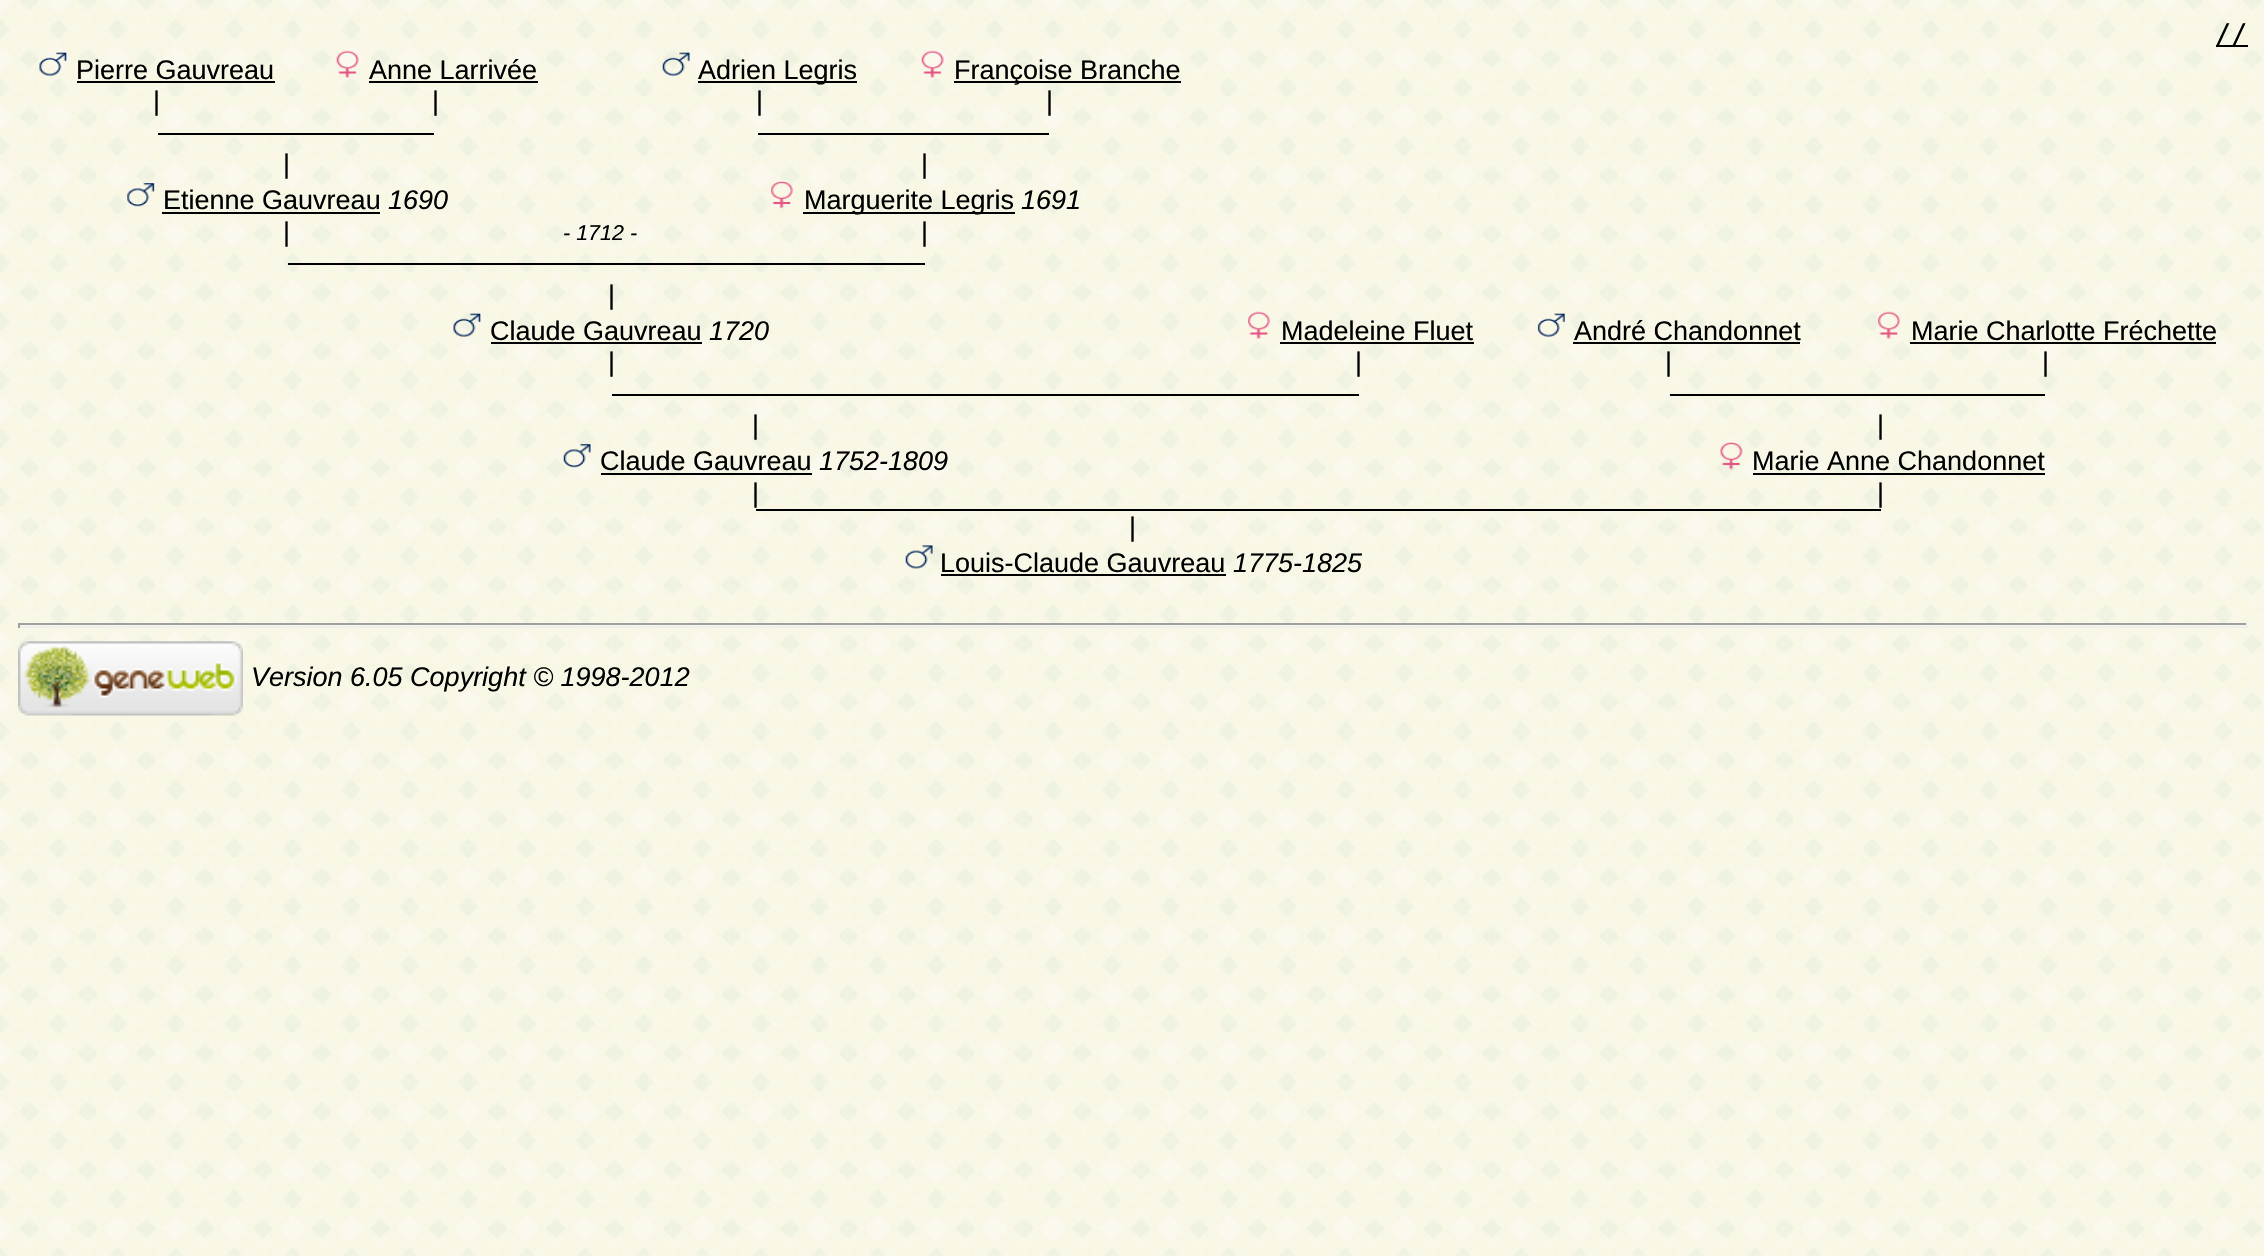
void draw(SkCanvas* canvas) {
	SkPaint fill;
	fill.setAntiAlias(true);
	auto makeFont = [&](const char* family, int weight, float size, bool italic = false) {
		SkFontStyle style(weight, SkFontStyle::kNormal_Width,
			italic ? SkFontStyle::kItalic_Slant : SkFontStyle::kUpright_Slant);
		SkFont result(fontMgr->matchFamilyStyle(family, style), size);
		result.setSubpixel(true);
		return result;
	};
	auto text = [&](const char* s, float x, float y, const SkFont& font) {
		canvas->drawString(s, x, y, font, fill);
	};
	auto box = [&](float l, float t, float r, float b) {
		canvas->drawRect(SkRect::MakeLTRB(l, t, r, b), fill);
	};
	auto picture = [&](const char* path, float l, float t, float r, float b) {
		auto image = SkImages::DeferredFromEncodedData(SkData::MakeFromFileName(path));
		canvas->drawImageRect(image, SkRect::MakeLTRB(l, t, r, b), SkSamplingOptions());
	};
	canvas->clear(0xFFFFFFFF);
	picture("image0.png", 0, 0, 2264, 1256);
	fill.setColor(0xFF000000);
	box(2216, 45, 2248, 47);
	picture("image1.png", 39, 52, 67, 76);
	box(77, 81, 275, 83);
	picture("image2.png", 336, 50, 359, 78);
	box(369, 81, 538, 83);
	picture("image3.png", 662, 52, 690, 76);
	box(698, 81, 857, 83);
	picture("image2.png", 921, 50, 944, 78);
	box(954, 81, 1181, 83);
	box(158, 133, 434, 135);
	box(758, 133, 1049, 135);
	picture("image4.png", 127, 183, 155, 207);
	box(162, 212, 380, 214);
	picture("image5.png", 771, 181, 793, 209);
	box(803, 212, 1015, 214);
	box(288, 263, 925, 265);
	picture("image6.png", 453, 313, 481, 337);
	box(491, 342, 702, 344);
	picture("image7.png", 1248, 311, 1270, 339);
	box(1280, 342, 1474, 344);
	picture("image8.png", 1537, 313, 1565, 337);
	box(1573, 342, 1800, 344);
	picture("image9.png", 1878, 311, 1900, 339);
	box(1910, 342, 2216, 344);
	box(612, 394, 1359, 396);
	box(1670, 394, 2045, 396);
	picture("image10.png", 563, 444, 591, 468);
	box(601, 473, 812, 475);
	picture("image11.png", 1720, 442, 1743, 470);
	box(1753, 473, 2045, 475);
	box(756, 509, 1881, 511);
	picture("image12.png", 905, 545, 933, 569);
	box(941, 574, 1226, 576);
	fill.setColor(0xFF9F9F9F);
	box(18, 623, 2248, 625);
	fill.setColor(0xFFEEEEEE);
	box(2246, 623, 2248, 628);
	box(18, 626, 2248, 628);
	fill.setColor(0xFF9F9F9F);
	box(18, 623, 20, 628);
	picture("image13.png", 18, 641, 243, 716);
	auto font1 = makeFont("DejaVu Sans Mono", 400, 27);
	fill.setColor(0xFF000000);
	text("//", 2215, 43, font1);
	auto font2 = makeFont("Liberation Sans", 400, 27);
	text("Pierre Gauvreau", 76, 79, font2);
	text("Anne Larrivée", 369, 79, font2);
	text("Adrien Legris", 698, 79, font2);
	text("Françoise Branche", 954, 79, font2);
	text("|", 153, 110, font2);
	text("|", 432, 110, font2);
	text("|", 756, 110, font2);
	text("|", 1046, 110, font2);
	text("|", 283, 173, font2);
	text("|", 921, 173, font2);
	text("Etienne Gauvreau", 163, 209, font2);
	auto font3 = makeFont("Liberation Sans", 400, 27, true);
	text("1690", 388, 209, font3);
	text("Marguerite Legris", 804, 209, font2);
	text("1691", 1021, 209, font3);
	text("|", 283, 241, font2);
	auto font4 = makeFont("Liberation Sans", 400, 21.5f, true);
	text("- 1712 -", 563, 240, font4);
	text("|", 921, 241, font2);
	text("|", 608, 304, font2);
	text("Claude Gauvreau", 490, 340, font2);
	text("1720", 709, 340, font3);
	text("Madeleine Fluet", 1281, 340, font2);
	text("André Chandonnet", 1574, 340, font2);
	text("Marie Charlotte Fréchette", 1911, 340, font2);
	text("|", 608, 371, font2);
	text("|", 1355, 371, font2);
	text("|", 1665, 371, font2);
	text("|", 2042, 371, font2);
	text("|", 752, 434, font2);
	text("|", 1877, 434, font2);
	text("Claude Gauvreau", 600, 470, font2);
	text("1752-1809", 819, 470, font3);
	text("Marie Anne Chandonnet", 1752, 470, font2);
	text("|", 752, 502, font2);
	text("|", 1877, 502, font2);
	text("|", 1129, 536, font2);
	text("Louis-Claude Gauvreau", 940, 572, font2);
	text("1775-1825", 1233, 572, font3);
	text("Version 6.05 Copyright © 1998-2012", 251, 686, font3);
}
